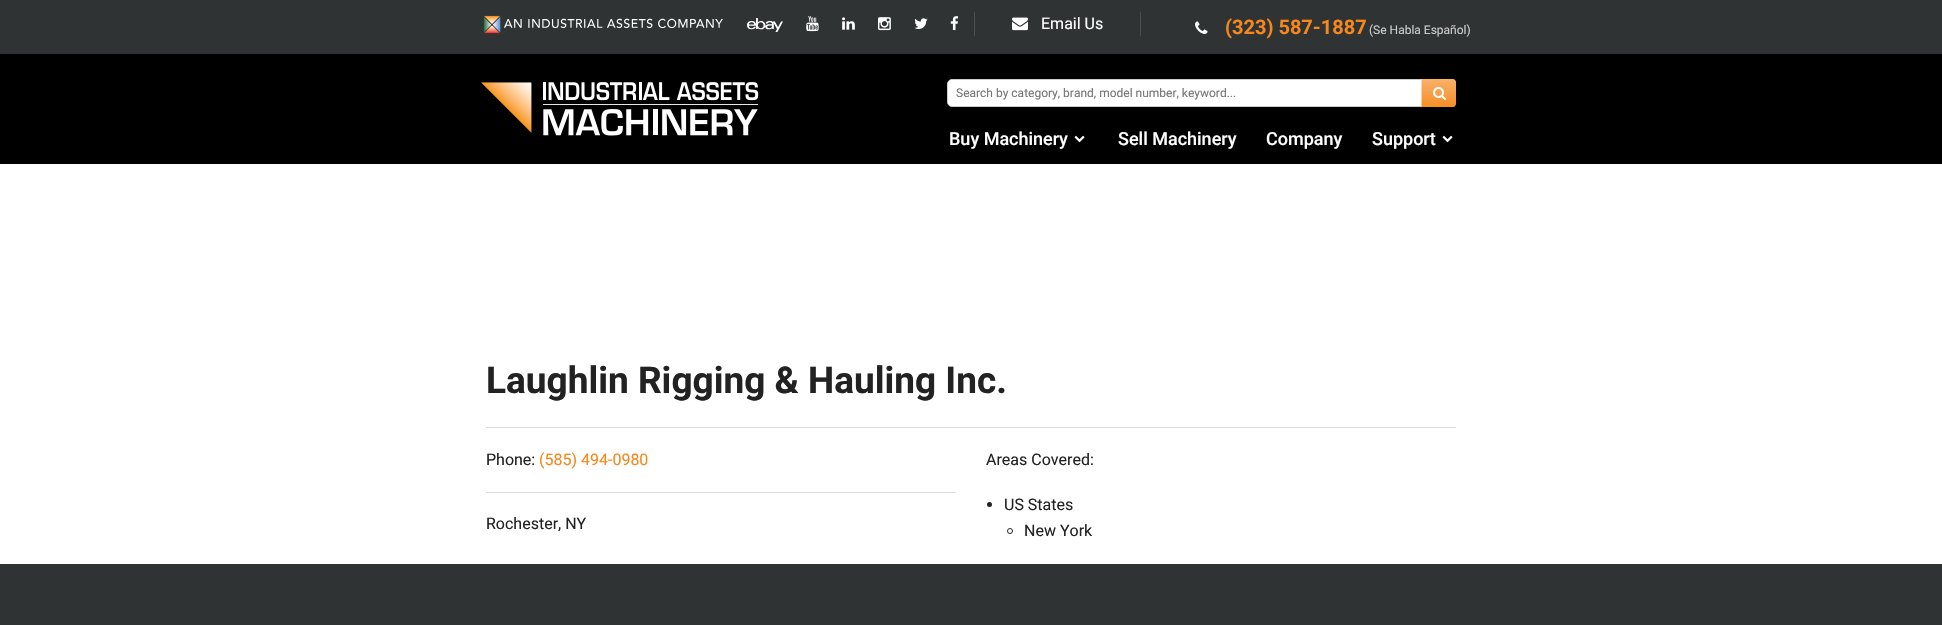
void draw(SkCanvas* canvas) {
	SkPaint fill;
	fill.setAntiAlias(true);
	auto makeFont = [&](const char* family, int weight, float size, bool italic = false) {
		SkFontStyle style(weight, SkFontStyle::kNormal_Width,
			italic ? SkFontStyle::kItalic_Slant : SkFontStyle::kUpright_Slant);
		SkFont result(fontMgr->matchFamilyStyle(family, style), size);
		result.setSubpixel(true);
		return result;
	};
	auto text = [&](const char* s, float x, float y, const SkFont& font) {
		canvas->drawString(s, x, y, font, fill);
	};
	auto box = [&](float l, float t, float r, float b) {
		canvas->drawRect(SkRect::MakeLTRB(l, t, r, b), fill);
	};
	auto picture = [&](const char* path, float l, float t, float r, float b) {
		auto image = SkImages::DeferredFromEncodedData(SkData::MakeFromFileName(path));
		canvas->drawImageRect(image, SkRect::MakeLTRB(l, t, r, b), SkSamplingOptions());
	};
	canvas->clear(0xFFFFFFFF);
	fill.setColor(0xFF303334);
	box(0, 0, 1942, 54);
	picture("image0.png", 483, 15, 723, 34);
	picture("image1.png", 747, 18, 783, 32);
	picture("image2.png", 806, 16, 819, 32);
	picture("image3.png", 842, 17, 855, 30);
	picture("image4.png", 878, 17, 891, 31);
	picture("image5.png", 914, 18, 928, 29);
	picture("image6.png", 950, 16, 959, 31);
	fill.setColor(0xFF4F5151);
	box(1140, 12, 1141, 36);
	box(974, 12, 975, 36);
	picture("image7.png", 1012, 17, 1028, 31);
	picture("image8.png", 1195, 21, 1208, 34);
	fill.setColor(0xFF000000);
	box(0, 54, 1942, 164);
	picture("image9.png", 481, 82, 759, 136);
	fill.setColor(0xFFFFFFFF);
	canvas->drawPath(SkPathBuilder().moveTo(952, 79.5f).lineTo(1424.5f, 79.5f).lineTo(1424.5f, 106.5f).lineTo(952, 106.5f).cubicTo(949.5f, 106.5f, 947.5f, 104.5f, 947.5f, 102).lineTo(947.5f, 84).cubicTo(947.5f, 81.5f, 949.5f, 79.5f, 952, 79.5f).close().detach(), fill);
	fill.setStyle(SkPaint::kStroke_Style);
	fill.setStrokeWidth(1);
	fill.setColor(0xFFCCCCCC);
	canvas->drawPath(SkPathBuilder().moveTo(952, 79.5f).lineTo(1424.5f, 79.5f).lineTo(1424.5f, 106.5f).lineTo(952, 106.5f).cubicTo(949.5f, 106.5f, 947.5f, 104.5f, 947.5f, 102).lineTo(947.5f, 84).cubicTo(947.5f, 81.5f, 949.5f, 79.5f, 952, 79.5f).close().detach(), fill);
	fill.setStyle(SkPaint::kFill_Style);
	{
		const SkColor colors[] = {0xFFF9B16A, 0xFFF78E26};
		const float stops[] = {0, 1};
		const SkPoint ends[] = {{1439, 79}, {1439, 107}};
		fill.setShader(SkGradientShader::MakeLinear(ends, colors, stops, 2, SkTileMode::kClamp));
		fill.setAlpha(255);
	}
	canvas->drawPath(SkPathBuilder().moveTo(1421, 79).lineTo(1453, 79).cubicTo(1454.5f, 79, 1456, 80.5f, 1456, 82).lineTo(1456, 104).cubicTo(1456, 105.5f, 1454.5f, 107, 1453, 107).lineTo(1421, 107).close().detach(), fill);
	fill.setShader(nullptr);
	fill.setColor(0x80FFFFFF);
	box(1421, 79, 1422, 107);
	picture("image10.png", 1433, 87, 1446, 100);
	picture("image11.png", 1074, 135, 1085, 143);
	picture("image11.png", 1442, 135, 1453, 143);
	fill.setColor(0xFFDDDDDD);
	box(486, 427, 1456, 428);
	box(486, 492, 956, 493);
	fill.setColor(0xFF222222);
	canvas->drawCircle(989.5f, 504.5f, 2.5f, fill);
	fill.setStyle(SkPaint::kStroke_Style);
	canvas->drawCircle(1010, 531, 2.5f, fill);
	fill.setStyle(SkPaint::kFill_Style);
	fill.setColor(0xFF303334);
	box(0, 564, 1942, 625);
	auto font1 = makeFont("Roboto", 400, 16);
	fill.setColor(0xFFFFFFFF);
	text("Email Us", 1041, 29, font1);
	auto font2 = makeFont("Roboto", 700, 20);
	fill.setColor(0xFFF6881B);
	text("(323) 587-1887", 1225, 34, font2);
	auto font3 = makeFont("Roboto", 400, 12);
	fill.setColor(0xFFCCCCCC);
	text("(Se Habla Español)", 1369, 34, font3);
	fill.setColor(0xFF757575);
	text("Search by category, brand, model number, keyword...", 956, 97, font3);
	auto font4 = makeFont("Roboto", 500, 18);
	fill.setColor(0xFFFFFFFF);
	text("Buy Machinery", 949, 145, font4);
	text("Sell Machinery", 1118, 145, font4);
	text("Company", 1266, 145, font4);
	text("Support", 1372, 145, font4);
	auto font5 = makeFont("Roboto", 700, 37);
	fill.setColor(0xFF222222);
	text("Laughlin Rigging & Hauling Inc.", 486, 393, font5);
	text("Phone:", 486, 465, font1);
	fill.setColor(0xFFF6881B);
	text("(585) 494-0980", 539, 465, font1);
	fill.setColor(0xFF222222);
	text("Rochester, NY", 486, 529, font1);
	text("Areas Covered:", 986, 465, font1);
	text("US States", 1004, 510, font1);
	text("New York", 1024, 536, font1);
}
